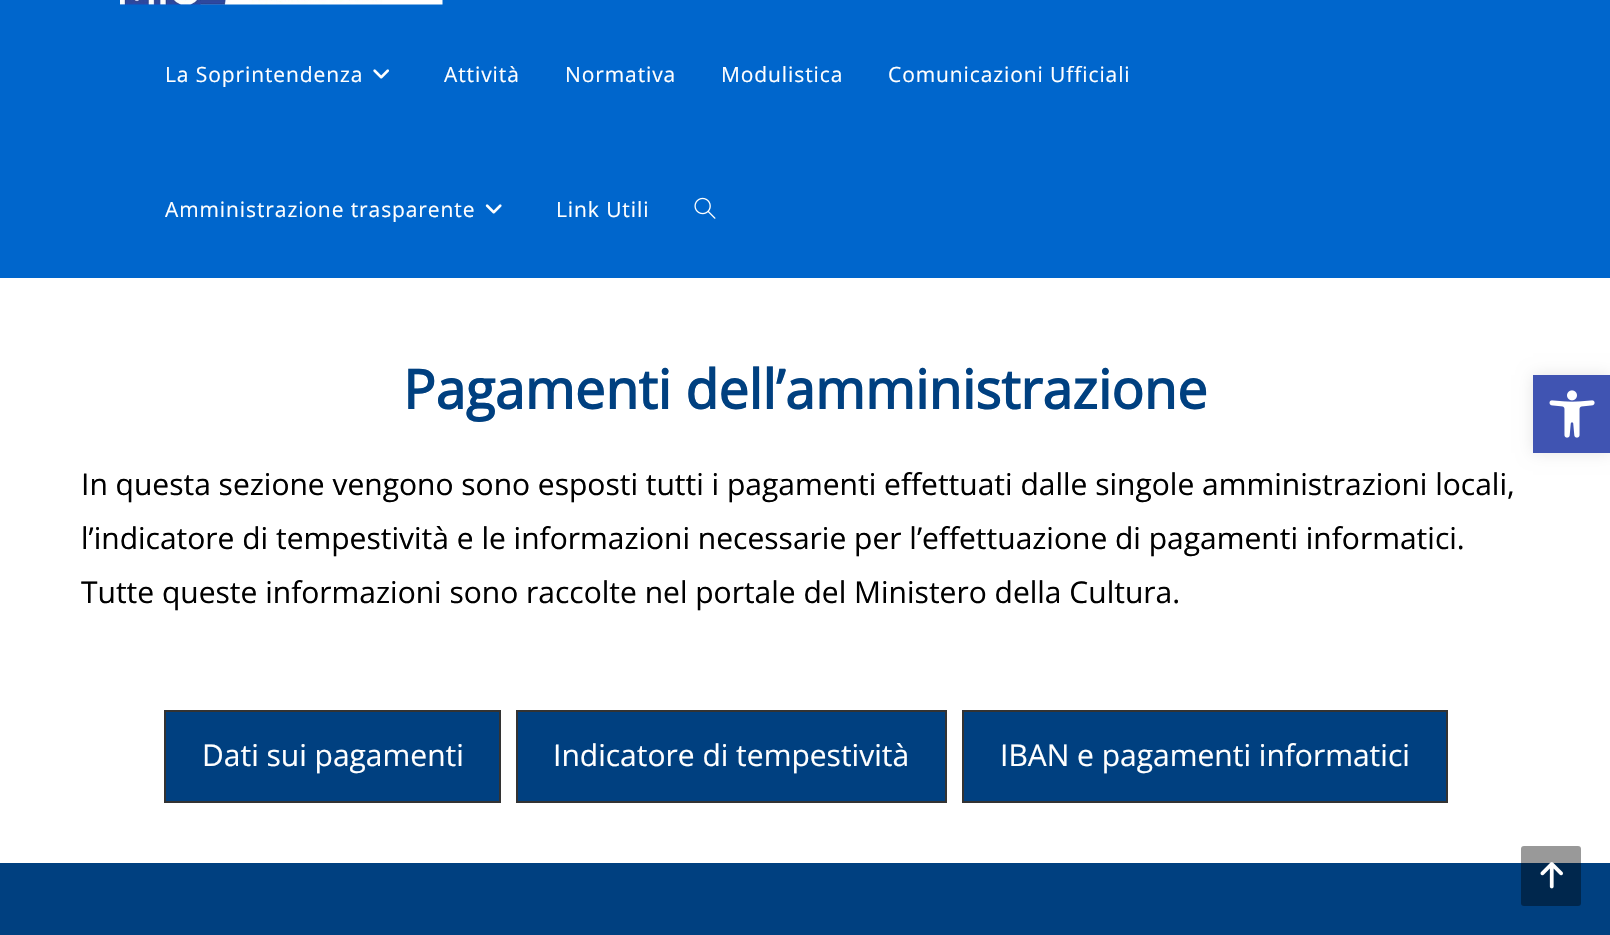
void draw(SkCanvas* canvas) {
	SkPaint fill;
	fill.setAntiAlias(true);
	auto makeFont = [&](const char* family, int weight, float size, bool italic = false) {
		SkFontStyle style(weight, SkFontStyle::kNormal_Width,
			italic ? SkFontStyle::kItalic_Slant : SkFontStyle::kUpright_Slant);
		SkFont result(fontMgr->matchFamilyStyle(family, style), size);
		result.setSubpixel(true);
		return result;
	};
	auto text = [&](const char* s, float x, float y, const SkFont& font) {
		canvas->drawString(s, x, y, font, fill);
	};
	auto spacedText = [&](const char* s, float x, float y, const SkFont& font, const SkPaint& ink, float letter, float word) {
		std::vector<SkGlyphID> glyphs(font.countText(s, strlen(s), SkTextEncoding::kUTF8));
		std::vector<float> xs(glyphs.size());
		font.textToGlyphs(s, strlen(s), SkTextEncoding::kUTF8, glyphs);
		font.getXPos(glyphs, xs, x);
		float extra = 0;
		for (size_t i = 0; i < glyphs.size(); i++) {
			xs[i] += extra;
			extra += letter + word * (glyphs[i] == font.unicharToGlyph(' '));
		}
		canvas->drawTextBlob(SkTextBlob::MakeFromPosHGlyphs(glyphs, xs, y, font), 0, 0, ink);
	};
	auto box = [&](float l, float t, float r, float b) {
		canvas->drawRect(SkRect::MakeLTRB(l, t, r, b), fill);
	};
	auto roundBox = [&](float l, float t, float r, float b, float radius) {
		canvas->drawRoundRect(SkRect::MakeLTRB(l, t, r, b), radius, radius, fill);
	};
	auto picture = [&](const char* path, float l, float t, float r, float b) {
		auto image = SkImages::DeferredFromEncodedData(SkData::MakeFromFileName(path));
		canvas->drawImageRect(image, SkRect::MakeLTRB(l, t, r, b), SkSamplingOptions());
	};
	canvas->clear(0xFFFFFFFF);
	fill.setColor(0xFF0066CC);
	box(0, 0, 1610, 278);
	picture("image0.png", 120, 0, 443, 5);
	picture("image1.png", 373, 69, 389, 79);
	picture("image2.png", 485, 204, 502, 214);
	picture("image3.png", 694, 197, 716, 219);
	fill.setColor(0xFF004080);
	canvas->drawRect(SkRect::MakeLTRB(165, 711, 500, 802), fill);
	fill.setStyle(SkPaint::kStroke_Style);
	fill.setStrokeWidth(2);
	fill.setColor(0xFF333333);
	canvas->drawRect(SkRect::MakeLTRB(165, 711, 500, 802), fill);
	fill.setStyle(SkPaint::kFill_Style);
	fill.setColor(0xFF004080);
	canvas->drawRect(SkRect::MakeLTRB(517, 711, 946, 802), fill);
	fill.setStyle(SkPaint::kStroke_Style);
	fill.setColor(0xFF333333);
	canvas->drawRect(SkRect::MakeLTRB(517, 711, 946, 802), fill);
	fill.setStyle(SkPaint::kFill_Style);
	fill.setColor(0xFF004080);
	canvas->drawRect(SkRect::MakeLTRB(963, 711, 1447, 802), fill);
	fill.setStyle(SkPaint::kStroke_Style);
	fill.setColor(0xFF333333);
	canvas->drawRect(SkRect::MakeLTRB(963, 711, 1447, 802), fill);
	fill.setStyle(SkPaint::kFill_Style);
	fill.setColor(0xFF004080);
	box(0, 863, 1610, 935);
	fill.setColor(0x1A000000);
	fill.setMaskFilter(SkMaskFilter::MakeBlur(kNormal_SkBlurStyle, 7.5f));
	canvas->drawRect(SkRect::MakeLTRB(1533, 375, 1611, 453), fill);
	fill.setMaskFilter(nullptr);
	fill.setColor(0xFF4054B2);
	box(1533, 375, 1610, 453);
	picture("image4.png", 1549, 390, 1595, 438);
	fill.setColor(0x66000000);
	roundBox(1521, 846, 1581, 906, 3);
	picture("image5.png", 1540, 862, 1563, 889);
	auto font1 = makeFont("Open Sans", 400, 21);
	fill.setColor(0xFFFFFFFF);
	spacedText("La Soprintendenza", 165, 82, font1, fill, 0.9f, 0);
	spacedText("Attività", 444, 82, font1, fill, 0.9f, 0);
	spacedText("Normativa", 565, 82, font1, fill, 0.9f, 0);
	spacedText("Modulistica", 721, 82, font1, fill, 0.9f, 0);
	spacedText("Comunicazioni Ufficiali", 888, 82, font1, fill, 0.9f, 0);
	spacedText("Amministrazione trasparente", 165, 217, font1, fill, 0.9f, 0);
	spacedText("Link Utili", 556, 217, font1, fill, 0.9f, 0);
	auto font2 = makeFont("Open Sans", 700, 54);
	fill.setColor(0xFF004080);
	text("Pagamenti dell’amministrazione", 403, 409, font2);
	auto font3 = makeFont("Open Sans", 400, 30);
	fill.setColor(0xFF000000);
	text("In questa sezione vengono sono esposti tutti i pagamenti effettuati dalle singole amministrazioni locali,", 81, 495, font3);
	text("l’indicatore di tempestività e le informazioni necessarie per l’effettuazione di pagamenti informatici.", 81, 549, font3);
	text("Tutte queste informazioni sono raccolte nel portale del Ministero della Cultura.", 81, 603, font3);
	fill.setColor(0xFFFFFFFF);
	text("Dati sui pagamenti", 202, 766, font3);
	text("Indicatore di tempestività", 553, 766, font3);
	text("IBAN e pagamenti informatici", 1000, 766, font3);
}
